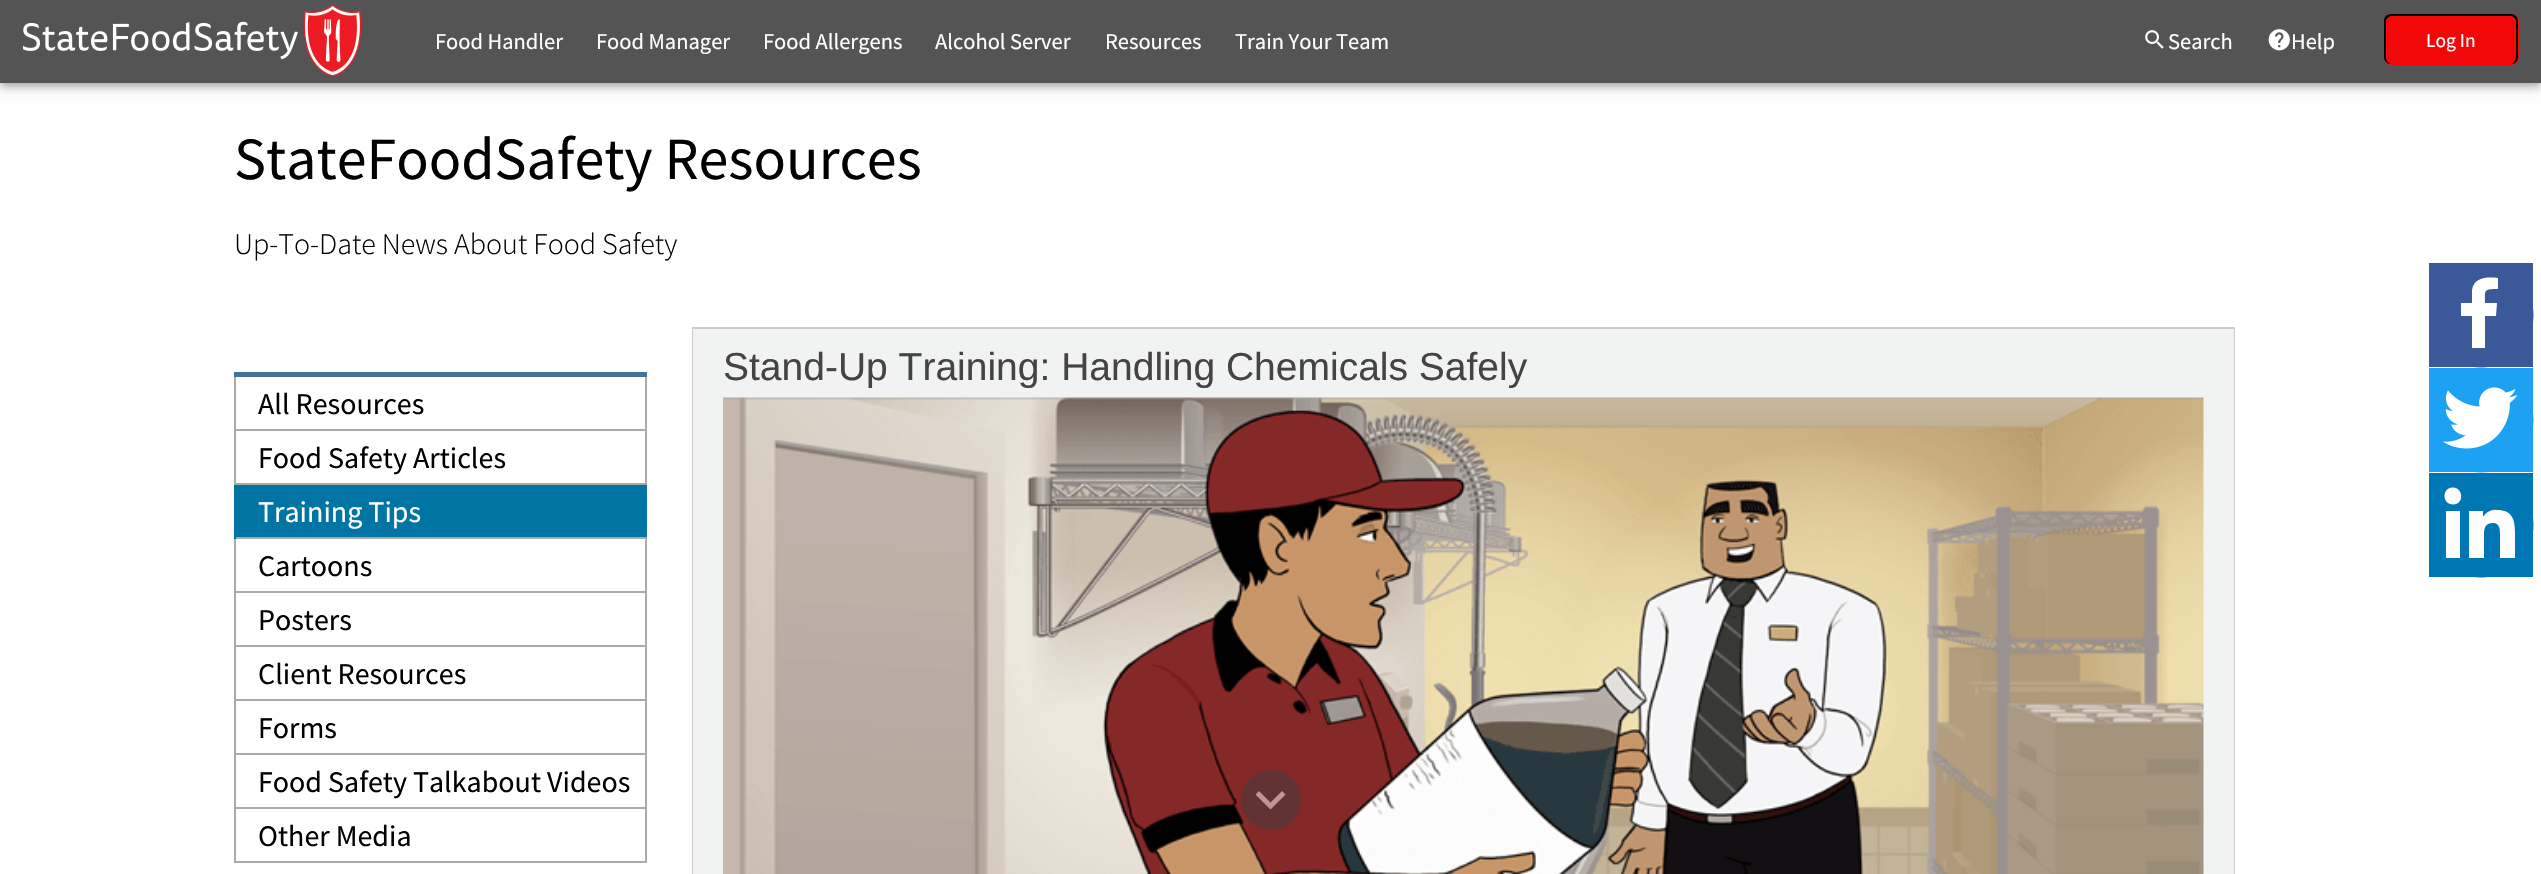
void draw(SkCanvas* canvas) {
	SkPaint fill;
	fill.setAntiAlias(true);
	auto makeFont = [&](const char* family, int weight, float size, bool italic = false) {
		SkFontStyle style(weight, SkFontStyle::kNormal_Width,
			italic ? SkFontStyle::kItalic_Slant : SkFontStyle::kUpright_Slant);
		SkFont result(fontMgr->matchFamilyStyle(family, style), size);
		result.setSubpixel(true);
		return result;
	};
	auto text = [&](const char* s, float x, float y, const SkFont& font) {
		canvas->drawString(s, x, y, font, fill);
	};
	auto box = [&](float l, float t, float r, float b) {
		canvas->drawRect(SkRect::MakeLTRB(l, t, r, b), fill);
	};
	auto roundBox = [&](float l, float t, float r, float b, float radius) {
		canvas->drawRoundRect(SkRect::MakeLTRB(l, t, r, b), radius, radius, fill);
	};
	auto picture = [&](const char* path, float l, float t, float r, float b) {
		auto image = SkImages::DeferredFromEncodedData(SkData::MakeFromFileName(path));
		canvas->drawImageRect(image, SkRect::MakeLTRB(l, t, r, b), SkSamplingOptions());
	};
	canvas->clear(0xFFFFFFFF);
	fill.setColor(0x1F000000);
	fill.setMaskFilter(SkMaskFilter::MakeBlur(kNormal_SkBlurStyle, 7.5f));
	canvas->drawRect(SkRect::MakeLTRB(0, 2, 2541, 84), fill);
	fill.setMaskFilter(nullptr);
	fill.setColor(0x24000000);
	fill.setMaskFilter(SkMaskFilter::MakeBlur(kNormal_SkBlurStyle, 4));
	canvas->drawRect(SkRect::MakeLTRB(0, 6, 2541, 89), fill);
	fill.setMaskFilter(nullptr);
	fill.setColor(0x33000000);
	fill.setMaskFilter(SkMaskFilter::MakeBlur(kNormal_SkBlurStyle, 3));
	canvas->drawRect(SkRect::MakeLTRB(2, 5, 2540, 84), fill);
	fill.setMaskFilter(nullptr);
	fill.setColor(0xFF545454);
	box(0, 0, 2541, 83);
	picture("image0.png", 23, 5, 362, 77);
	picture("image1.png", 2145, 30, 2164, 49);
	picture("image2.png", 2268, 29, 2290, 51);
	fill.setColor(0xFFF20808);
	roundBox(2384, 14, 2519, 65, 8);
	fill.setColor(0xFF000000);
	canvas->drawPath(SkPathBuilder(SkPathFillType::kEvenOdd).moveTo(2391, 14).lineTo(2511, 14).cubicTo(2515, 14, 2518, 17, 2518, 21).lineTo(2518, 57).cubicTo(2518, 61, 2515, 64, 2511, 64).lineTo(2391, 64).cubicTo(2387, 64, 2384, 61, 2384, 57).lineTo(2384, 21).cubicTo(2384, 17, 2387, 14, 2391, 14).close().moveTo(2391, 16).lineTo(2511, 16).cubicTo(2513, 16, 2516, 19, 2516, 21).lineTo(2516, 57).cubicTo(2516, 61, 2513, 64, 2511, 64).lineTo(2391, 64).cubicTo(2389, 64, 2386, 61, 2386, 57).lineTo(2386, 21).cubicTo(2386, 19, 2389, 16, 2391, 16).close().detach(), fill);
	fill.setColor(0xFFF1F2F2);
	box(693, 329, 2234, 874);
	fill.setColor(0xFFCCCCCC);
	box(692, 327, 2235, 329);
	canvas->drawPath(SkPathBuilder().moveTo(2235, 327).lineTo(2235, 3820).lineTo(2234, 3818).lineTo(2234, 328).close().detach(), fill);
	canvas->drawPath(SkPathBuilder().moveTo(692, 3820).lineTo(692, 327).lineTo(693, 328).lineTo(693, 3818).close().detach(), fill);
	picture("image3.png", 723, 397, 2204, 874);
	fill.setColor(0xFF3B5998);
	box(2429, 263, 2533, 367);
	canvas->save();
	canvas->clipRect(SkRect::MakeLTRB(2429, 263, 2534, 368));
	canvas->drawCircle(2481, 315, 52.5f, fill);
	canvas->restore();
	fill.setColor(0xFFFFFFFF);
	canvas->drawPath(SkPathBuilder().moveTo(2498, 289).cubicTo(2483, 289, 2485, 290, 2485, 303).lineTo(2497, 303).lineTo(2496, 316).lineTo(2485, 316).lineTo(2485, 348).lineTo(2472, 348).lineTo(2472, 316).lineTo(2461, 316).lineTo(2461, 303).lineTo(2472, 303).lineTo(2472, 290).cubicTo(2474, 277, 2487, 277, 2498, 278).close().detach(), fill);
	picture("image4.png", 2429, 368, 2534, 473);
	fill.setColor(0xFF0077B5);
	box(2429, 473, 2533, 577);
	canvas->save();
	canvas->clipRect(SkRect::MakeLTRB(2429, 473, 2534, 578));
	canvas->drawCircle(2481, 525, 52.5f, fill);
	canvas->restore();
	fill.setColor(0xFFFFFFFF);
	box(2446, 511, 2460, 558);
	canvas->drawPath(SkPathBuilder().moveTo(2453, 504.5f).cubicTo(2442, 504.5f, 2441.5f, 488, 2452.5f, 487.5f).cubicTo(2463.5f, 487, 2464.5f, 504.5f, 2453, 504.5f).close().detach(), fill);
	canvas->drawPath(SkPathBuilder().moveTo(2515, 558).lineTo(2500, 558).lineTo(2500, 535).cubicTo(2500, 530, 2500, 523, 2493, 523).cubicTo(2485, 523, 2484, 528, 2484, 535).lineTo(2484, 558).lineTo(2469, 558).lineTo(2469, 511).lineTo(2483, 511).lineTo(2483, 517).cubicTo(2486, 512, 2492, 509, 2497, 510).cubicTo(2512, 510, 2515, 519, 2515, 532).close().detach(), fill);
	fill.setColor(0xFF437499);
	box(234, 372, 647, 377);
	fill.setColor(0xFFAAAAAA);
	box(645, 377, 647, 485);
	box(234, 429, 647, 431);
	box(234, 377, 236, 431);
	box(234, 483, 647, 485);
	box(234, 431, 236, 485);
	fill.setColor(0xFF0074A2);
	box(236, 485, 647, 537);
	fill.setColor(0xFFAAAAAA);
	box(234, 537, 647, 539);
	fill.setColor(0xFF0074A2);
	box(234, 485, 236, 539);
	fill.setColor(0xFFAAAAAA);
	box(645, 539, 647, 863);
	box(234, 591, 647, 593);
	box(234, 539, 236, 593);
	box(234, 645, 647, 647);
	box(234, 593, 236, 647);
	box(234, 699, 647, 701);
	box(234, 647, 236, 701);
	box(234, 753, 647, 755);
	box(234, 701, 236, 755);
	box(234, 807, 647, 809);
	box(234, 755, 236, 809);
	box(234, 861, 647, 863);
	box(234, 809, 236, 863);
	fill.setColor(0xFF613333);
	canvas->drawCircle(1271, 800, 30, fill);
	fill.setColor(0xFFC29494);
	canvas->drawPath(SkPathBuilder().moveTo(1259, 791).lineTo(1270.5f, 802.5f).lineTo(1282, 791).lineTo(1285.5f, 794.5f).lineTo(1270.5f, 809.5f).lineTo(1255.5f, 794.5f).close().detach(), fill);
	auto font1 = makeFont("Source Sans Pro", 400, 22.5f);
	fill.setColor(0xFFFFFFFF);
	text("Food Handler", 435, 49, font1);
	text("Food Manager", 596, 49, font1);
	text("Food Allergens", 763, 49, font1);
	text("Alcohol Server", 935, 49, font1);
	text("Resources", 1105, 49, font1);
	text("Train Your Team", 1235, 49, font1);
	text("Search", 2168, 49, font1);
	text("Help", 2291, 49, font1);
	auto font2 = makeFont("Source Sans Pro", 400, 19.5f);
	text("Log In", 2426, 47, font2);
	auto font3 = makeFont("Source Sans Pro", 400, 60);
	fill.setColor(0xFF000000);
	text("StateFoodSafety Resources", 234, 179, font3);
	auto font4 = makeFont("Source Sans Pro", 300, 30);
	text("Up-To-Date News About Food Safety", 234, 254, font4);
	auto font5 = makeFont("Liberation Sans", 400, 39);
	fill.setColor(0xFF444444);
	text("Stand-Up Training: Handling Chemicals Safely", 723, 380, font5);
	auto font6 = makeFont("Source Sans Pro", 400, 30);
	fill.setColor(0xFF000000);
	text("All Resources", 258, 414, font6);
	text("Food Safety Articles", 258, 468, font6);
	fill.setColor(0xFFFFFFFF);
	text("Training Tips", 258, 522, font6);
	fill.setColor(0xFF000000);
	text("Cartoons", 258, 576, font6);
	text("Posters", 258, 630, font6);
	text("Client Resources", 258, 684, font6);
	text("Forms", 258, 738, font6);
	text("Food Safety Talkabout Videos", 258, 792, font6);
	text("Other Media", 258, 846, font6);
}
